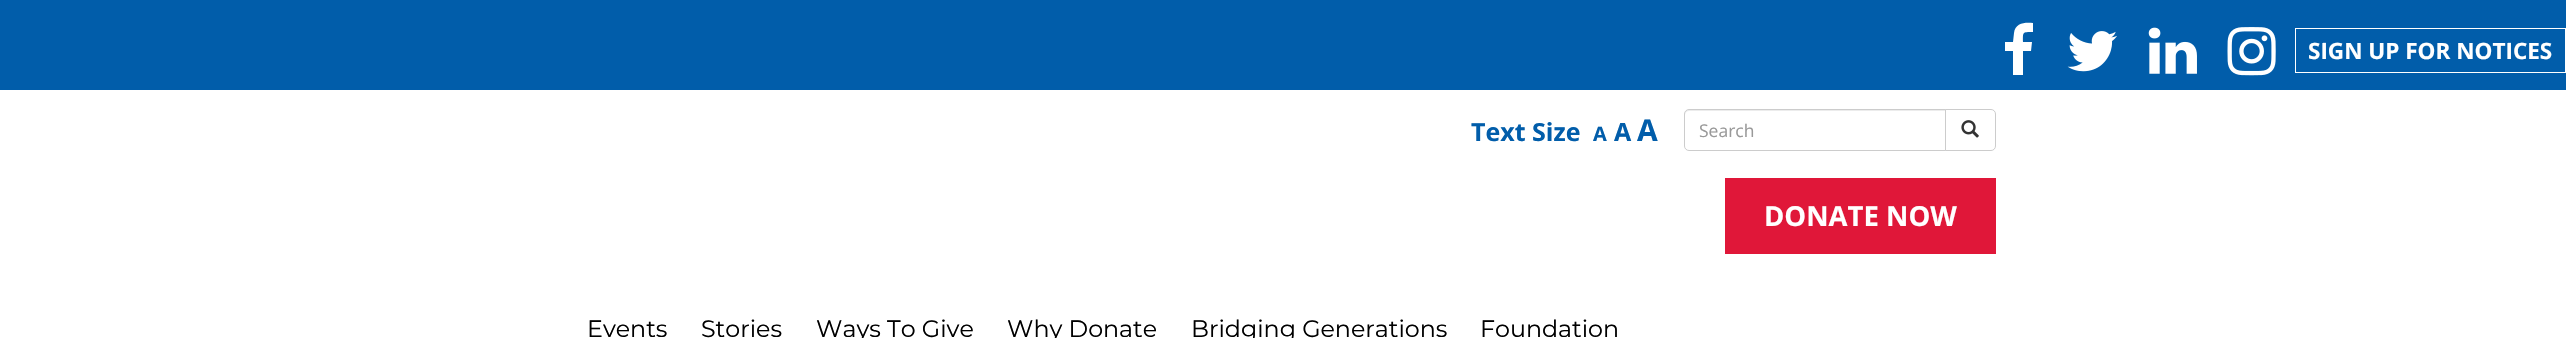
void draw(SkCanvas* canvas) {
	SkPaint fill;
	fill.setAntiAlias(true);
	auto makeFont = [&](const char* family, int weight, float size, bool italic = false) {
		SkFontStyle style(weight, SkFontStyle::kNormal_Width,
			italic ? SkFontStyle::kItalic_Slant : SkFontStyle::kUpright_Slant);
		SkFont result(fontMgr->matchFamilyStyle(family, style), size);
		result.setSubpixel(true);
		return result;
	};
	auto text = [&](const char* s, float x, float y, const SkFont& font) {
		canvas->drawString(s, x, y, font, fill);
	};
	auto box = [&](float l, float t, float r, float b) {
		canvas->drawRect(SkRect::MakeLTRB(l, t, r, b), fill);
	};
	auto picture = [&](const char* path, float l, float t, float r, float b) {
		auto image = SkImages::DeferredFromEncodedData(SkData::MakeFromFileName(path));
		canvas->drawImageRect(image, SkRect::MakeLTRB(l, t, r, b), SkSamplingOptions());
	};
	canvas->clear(0xFFFFFFFF);
	fill.setColor(0xFF015DAA);
	box(0, 0, 2566, 90);
	fill.setColor(0xFFFFFFFF);
	canvas->drawPath(SkPathBuilder().moveTo(2033, 23).lineTo(2033, 32).cubicTo(2022, 32, 2023, 32, 2023, 42).lineTo(2032, 42).lineTo(2031, 51).lineTo(2023, 51).lineTo(2023, 75).lineTo(2013, 75).lineTo(2013, 51).lineTo(2005, 51).lineTo(2005, 42).lineTo(2013, 42).lineTo(2014, 33).cubicTo(2015, 23, 2025, 22, 2033, 23).close().detach(), fill);
	picture("image0.png", 2067, 31, 2117, 72);
	picture("image1.png", 2148, 27, 2197, 74);
	picture("image2.png", 2227, 27, 2276, 76);
	fill.setStyle(SkPaint::kStroke_Style);
	fill.setStrokeWidth(1);
	canvas->drawRect(SkRect::MakeLTRB(2295.5f, 28.5f, 2565.5f, 72.5f), fill);
	fill.setStyle(SkPaint::kFill_Style);
	fill.setColor(0xFFECECEC);
	canvas->drawPath(SkPathBuilder().moveTo(1689, 111).lineTo(1945, 111).lineTo(1945, 110).lineTo(1689, 110).cubicTo(1686, 110, 1685, 112, 1685, 115).cubicTo(1685, 113, 1687, 111, 1689, 111).close().detach(), fill);
	fill.setStyle(SkPaint::kStroke_Style);
	fill.setColor(0xFFCCCCCC);
	canvas->drawPath(SkPathBuilder().moveTo(1689, 109.5f).lineTo(1945.5f, 109.5f).lineTo(1945.5f, 150.5f).lineTo(1689, 150.5f).cubicTo(1686.5f, 150.5f, 1684.5f, 148.5f, 1684.5f, 146).lineTo(1684.5f, 114).cubicTo(1684.5f, 111.5f, 1686.5f, 109.5f, 1689, 109.5f).close().detach(), fill);
	fill.setStyle(SkPaint::kFill_Style);
	fill.setColor(0xFFFFFFFF);
	canvas->drawPath(SkPathBuilder().moveTo(1945.5f, 109.5f).lineTo(1991, 109.5f).cubicTo(1993.5f, 109.5f, 1995.5f, 111.5f, 1995.5f, 114).lineTo(1995.5f, 146).cubicTo(1995.5f, 148.5f, 1993.5f, 150.5f, 1991, 150.5f).lineTo(1945.5f, 150.5f).close().detach(), fill);
	fill.setStyle(SkPaint::kStroke_Style);
	fill.setColor(0xFFCCCCCC);
	canvas->drawPath(SkPathBuilder().moveTo(1945.5f, 109.5f).lineTo(1991, 109.5f).cubicTo(1993.5f, 109.5f, 1995.5f, 111.5f, 1995.5f, 114).lineTo(1995.5f, 146).cubicTo(1995.5f, 148.5f, 1993.5f, 150.5f, 1991, 150.5f).lineTo(1945.5f, 150.5f).close().detach(), fill);
	picture("image3.png", 1961, 120, 1979, 138);
	fill.setStyle(SkPaint::kFill_Style);
	fill.setColor(0xFFE01739);
	box(1725, 178, 1996, 254);
	auto font1 = makeFont("Open Sans", 700, 22.5f);
	fill.setColor(0xFFFFFFFF);
	text("SIGN UP FOR NOTICES", 2308, 59, font1);
	auto font2 = makeFont("Open Sans", 700, 25);
	fill.setColor(0xFF015DAA);
	text("Text Size", 1471, 141, font2);
	auto font3 = makeFont("Open Sans", 700, 20);
	text("A", 1593, 141, font3);
	text("A", 1614, 141, font2);
	auto font4 = makeFont("Open Sans", 700, 30);
	text("A", 1637, 141, font4);
	auto font5 = makeFont("Open Sans", 400, 17.5f);
	fill.setColor(0xFF999999);
	text("Search", 1699, 137, font5);
	auto font6 = makeFont("Open Sans", 700, 27.5f);
	fill.setColor(0xFFFFFFFF);
	text("DONATE NOW", 1764, 226, font6);
	auto font7 = makeFont("Montserrat", 400, 23.75f);
	fill.setColor(0xFF000000);
	text("Events", 587, 337, font7);
	text("Stories", 701, 337, font7);
	text("Ways To Give", 816, 337, font7);
	text("Why Donate", 1007, 337, font7);
	text("Bridging Generations", 1191, 337, font7);
	text("Foundation", 1480, 337, font7);
}
